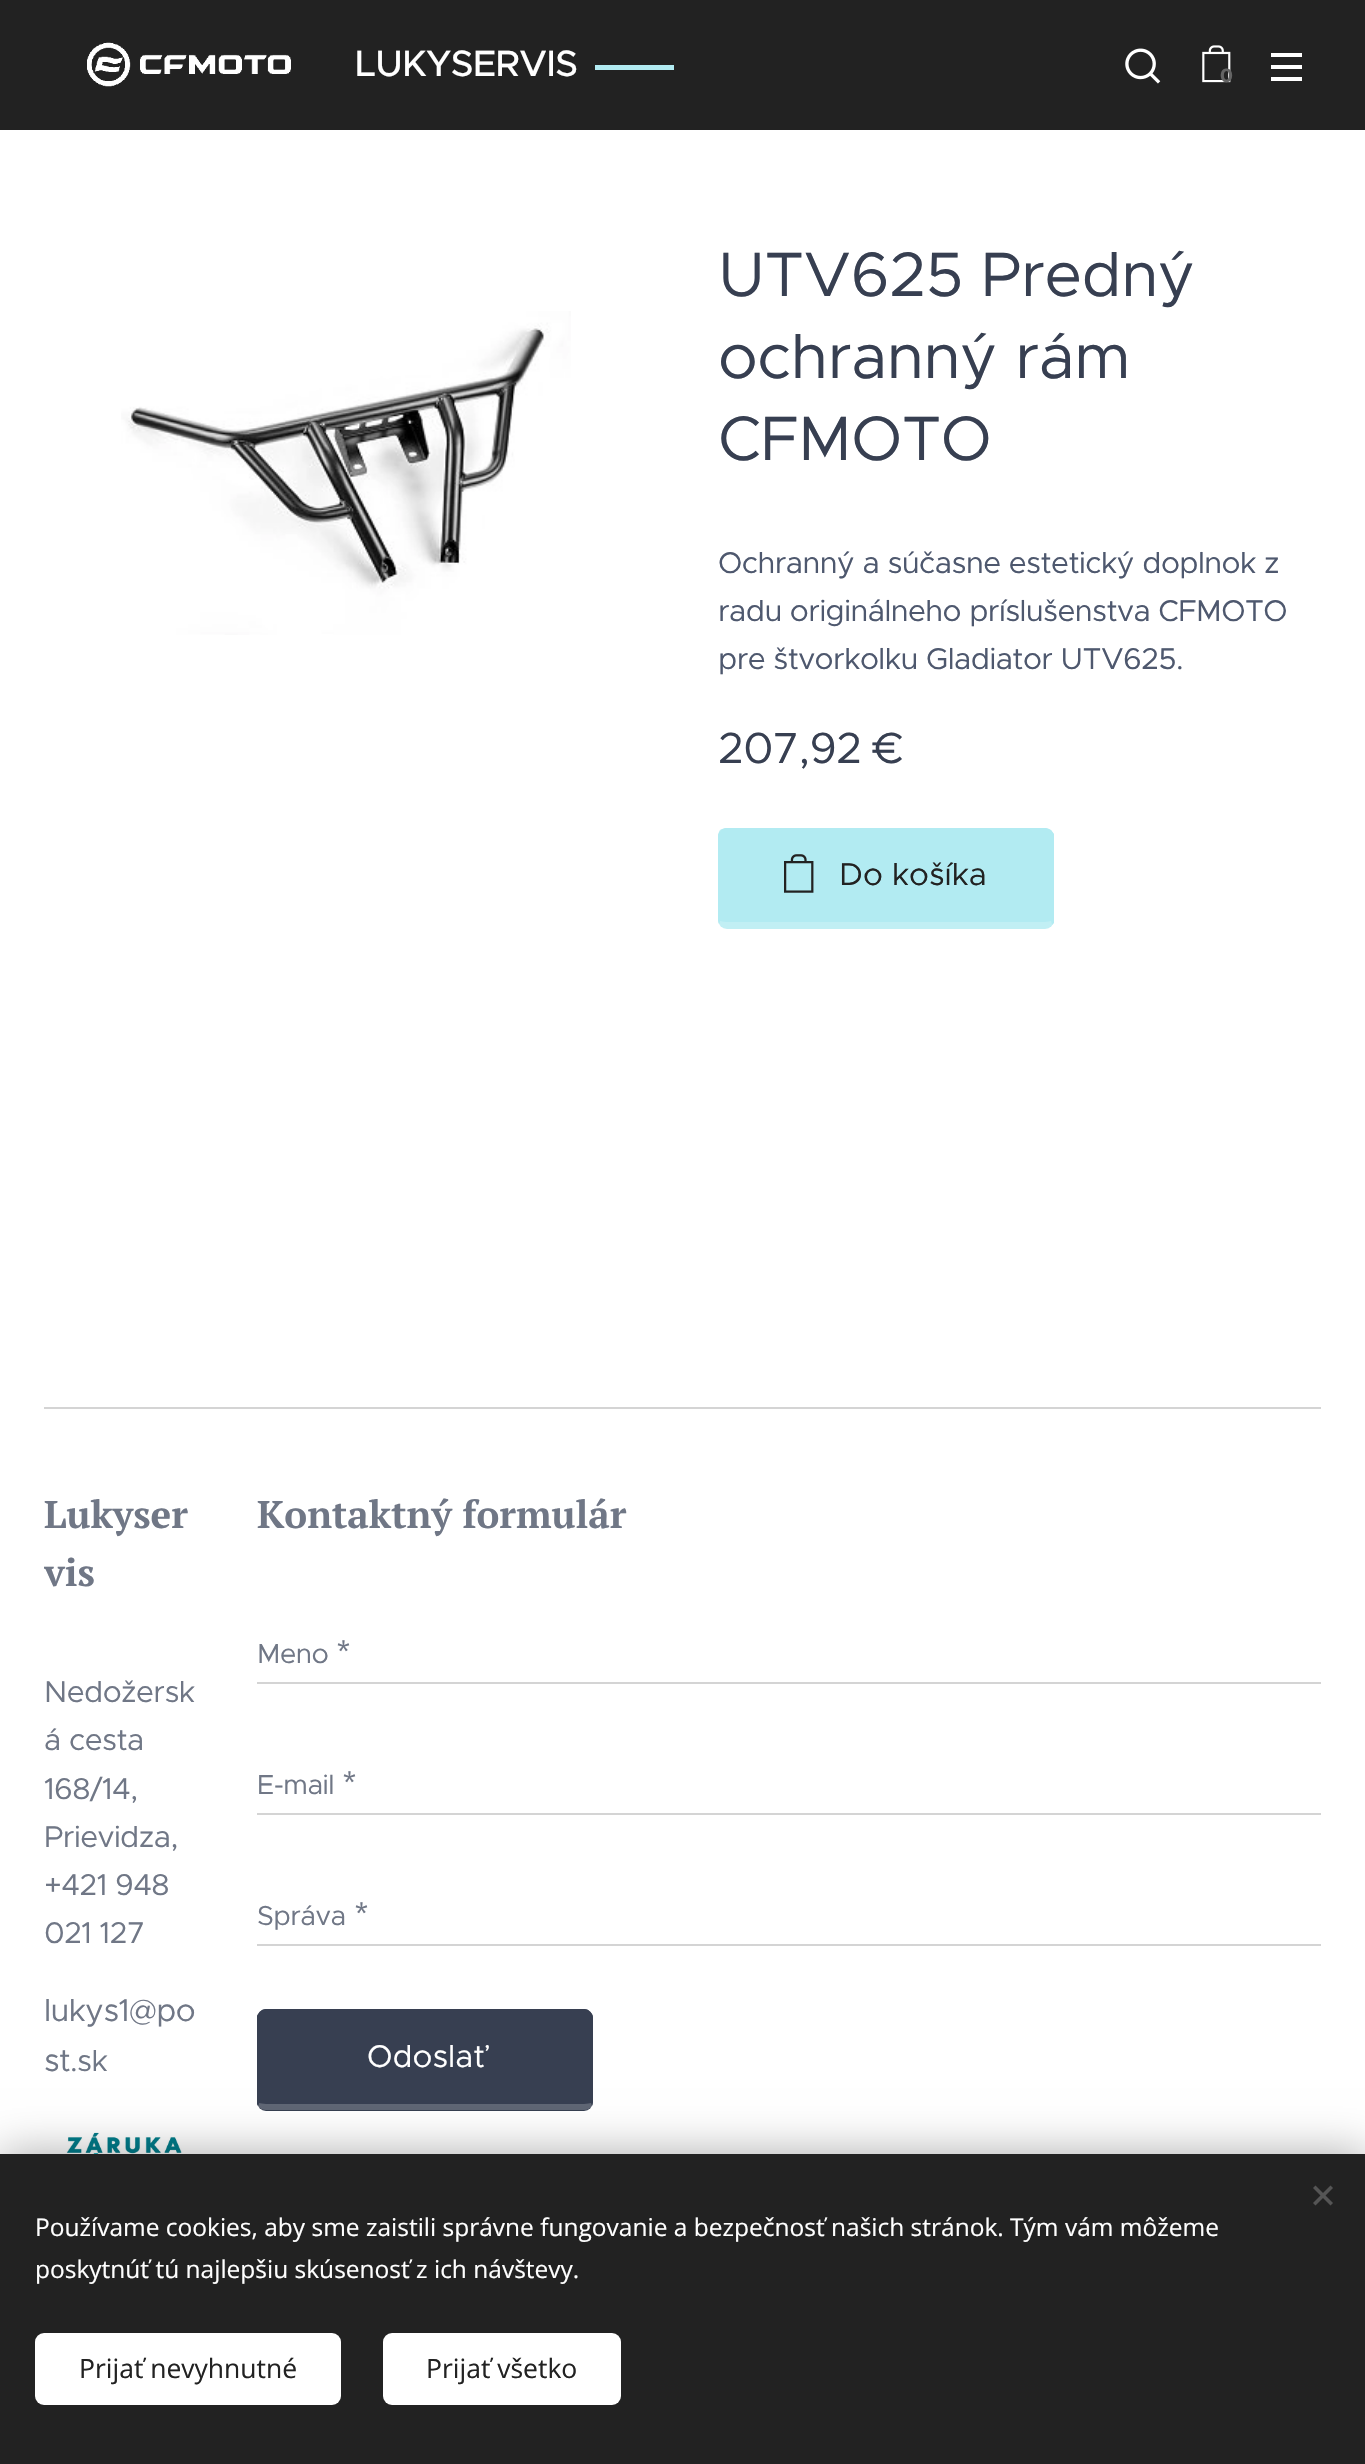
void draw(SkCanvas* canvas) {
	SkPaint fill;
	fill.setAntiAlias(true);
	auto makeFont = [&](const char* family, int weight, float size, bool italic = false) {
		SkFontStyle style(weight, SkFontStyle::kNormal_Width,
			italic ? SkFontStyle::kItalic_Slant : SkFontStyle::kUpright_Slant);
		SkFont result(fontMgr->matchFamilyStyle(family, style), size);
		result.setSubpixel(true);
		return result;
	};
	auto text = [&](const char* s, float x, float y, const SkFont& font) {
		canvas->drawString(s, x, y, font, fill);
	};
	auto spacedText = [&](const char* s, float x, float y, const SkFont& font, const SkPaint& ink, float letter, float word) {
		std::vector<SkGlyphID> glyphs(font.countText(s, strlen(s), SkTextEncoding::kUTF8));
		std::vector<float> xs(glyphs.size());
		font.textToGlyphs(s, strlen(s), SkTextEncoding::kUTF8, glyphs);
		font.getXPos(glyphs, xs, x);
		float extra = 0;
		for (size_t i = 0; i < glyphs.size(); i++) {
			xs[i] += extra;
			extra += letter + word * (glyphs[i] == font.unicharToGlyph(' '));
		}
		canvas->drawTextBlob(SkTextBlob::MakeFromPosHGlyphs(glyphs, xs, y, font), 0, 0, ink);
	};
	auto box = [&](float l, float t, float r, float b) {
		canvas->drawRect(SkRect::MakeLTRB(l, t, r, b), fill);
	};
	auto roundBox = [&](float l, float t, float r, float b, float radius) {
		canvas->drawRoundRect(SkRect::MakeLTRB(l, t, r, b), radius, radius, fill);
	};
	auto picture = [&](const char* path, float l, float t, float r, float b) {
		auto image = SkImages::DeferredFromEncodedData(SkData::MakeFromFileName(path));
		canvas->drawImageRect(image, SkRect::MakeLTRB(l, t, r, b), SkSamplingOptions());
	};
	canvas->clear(0xFFFFFFFF);
	fill.setColor(0xFF222222);
	box(0, 0, 1365, 130);
	picture("image0.png", 87, 42, 291, 87);
	fill.setColor(0xFFB2EBF2);
	box(595, 65, 674, 70);
	picture("image1.png", 1125, 48, 1161, 84);
	picture("image2.png", 1202, 45, 1231, 83);
	fill.setColor(0xFFFFFFFF);
	box(1271, 65, 1302, 69);
	box(1271, 53, 1302, 57);
	box(1271, 77, 1302, 81);
	picture("image3.png", 121, 311, 571, 635);
	fill.setColor(0xFFB2EBF2);
	roundBox(718, 828, 1054, 929, 9);
	canvas->drawPath(SkPathBuilder().moveTo(726, 828).cubicTo(724, 828, 722, 829, 720, 830).lineTo(721, 832).cubicTo(723, 831, 724, 830, 726, 830).lineTo(1045, 830).cubicTo(1047, 830, 1048, 831, 1050, 832).lineTo(1051, 830).cubicTo(1049, 829, 1047, 828, 1045, 828).close().detach(), fill);
	canvas->drawPath(SkPathBuilder().moveTo(1051, 830).lineTo(1054, 834).lineTo(1054, 923).lineTo(1052, 925).lineTo(1051, 921).lineTo(1052, 920).lineTo(1052, 836).cubicTo(1052, 834, 1051, 833, 1050, 832).close().detach(), fill);
	fill.setColor(0x33FFFFFF);
	canvas->drawPath(SkPathBuilder().moveTo(1052, 925).cubicTo(1051, 927, 1048, 929, 1045, 929).lineTo(726, 929).cubicTo(722, 929, 720, 927, 719, 924).lineTo(720, 921).cubicTo(721, 921, 723, 922, 726, 922).lineTo(1045, 922).cubicTo(1048, 922, 1050, 921, 1051, 921).close().detach(), fill);
	fill.setColor(0xFFB2EBF2);
	canvas->drawPath(SkPathBuilder().moveTo(720, 830).cubicTo(719, 832, 718, 834, 718, 836).lineTo(718, 920).lineTo(719, 924).lineTo(720, 921).lineTo(719, 920).lineTo(719, 836).cubicTo(719, 834, 720, 833, 721, 832).close().detach(), fill);
	picture("image4.png", 784, 854, 814, 893);
	fill.setColor(0xFFD4D4D4);
	box(44, 1407, 1321, 1409);
	picture("image5.png", 66, 2132, 182, 2154);
	box(257, 1682, 1321, 1684);
	box(257, 1813, 1321, 1815);
	box(257, 1944, 1321, 1946);
	fill.setColor(0xFF373F51);
	roundBox(257, 2009, 593, 2111, 9);
	canvas->drawPath(SkPathBuilder().moveTo(266, 2009).cubicTo(264, 2009, 261, 2010, 260, 2012).lineTo(261, 2013).cubicTo(262, 2012, 264, 2011, 266, 2011).lineTo(584, 2011).cubicTo(586, 2011, 588, 2012, 589, 2013).lineTo(590, 2012).cubicTo(589, 2010, 587, 2009, 584, 2009).close().detach(), fill);
	canvas->drawPath(SkPathBuilder().moveTo(590, 2012).cubicTo(592, 2013, 593, 2016, 593, 2018).lineTo(593, 2102).lineTo(592, 2106).lineTo(591, 2103).lineTo(592, 2102).lineTo(592, 2017).cubicTo(591, 2015, 591, 2014, 589, 2013).close().detach(), fill);
	fill.setColor(0x33FFFFFF);
	canvas->drawPath(SkPathBuilder().moveTo(592, 2106).cubicTo(591, 2108, 588, 2110, 584, 2110).lineTo(266, 2110).cubicTo(263, 2110, 260, 2109, 258, 2106).lineTo(259, 2103).cubicTo(260, 2103, 263, 2104, 266, 2104).lineTo(584, 2104).cubicTo(587, 2104, 590, 2103, 591, 2103).close().detach(), fill);
	fill.setColor(0xFF373F51);
	canvas->drawPath(SkPathBuilder().moveTo(257, 2016).cubicTo(258, 2014, 259, 2013, 260, 2012).lineTo(261, 2013).cubicTo(257, 2017, 259, 2029, 259, 2032).lineTo(259, 2103).lineTo(258, 2106).lineTo(257, 2104).close().detach(), fill);
	fill.setColor(0x54000000);
	fill.setMaskFilter(SkMaskFilter::MakeBlur(kNormal_SkBlurStyle, 22));
	canvas->drawRect(SkRect::MakeLTRB(0, 2154, 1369, 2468), fill);
	fill.setMaskFilter(nullptr);
	fill.setColor(0xFF222222);
	box(0, 2154, 1365, 2464);
	fill.setColor(0xFF555555);
	canvas->drawPath(SkPathBuilder().moveTo(1313, 2203).lineTo(1330.5f, 2185.5f).lineTo(1333, 2188).lineTo(1315.5f, 2205.5f).close().detach(), fill);
	canvas->drawPath(SkPathBuilder().moveTo(1315.5f, 2185.5f).lineTo(1333, 2203).lineTo(1330.5f, 2205.5f).lineTo(1313, 2188).close().detach(), fill);
	fill.setColor(0xFFFFFFFF);
	roundBox(35, 2333, 341, 2405, 9);
	roundBox(383, 2333, 621, 2405, 9);
	auto font1 = makeFont("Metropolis", 500, 36.75f);
	spacedText("LUKYSERVIS", 355, 76, font1, fill, -0.55f, 0);
	auto font2 = makeFont("Montserrat", 700, 19);
	fill.setColor(0xFF646464);
	text("0", 1220, 82, font2);
	auto font3 = makeFont("Metropolis", 400, 63);
	fill.setColor(0xFF373F51);
	spacedText("UTV625 Predný", 718, 296, font3, fill, -0.55f, 0);
	spacedText("ochranný rám", 718, 378, font3, fill, -0.55f, 0);
	spacedText("CFMOTO", 718, 460, font3, fill, -0.55f, 0);
	auto font4 = makeFont("Metropolis", 400, 30.1f);
	fill.setColor(0xFF4E586E);
	spacedText("Ochranný a súčasne estetický doplnok z", 718, 573, font4, fill, -0.55f, 0);
	spacedText("radu originálneho príslušenstva CFMOTO", 718, 621, font4, fill, -0.55f, 0);
	spacedText("pre štvorkolku Gladiator UTV625.", 718, 669, font4, fill, -0.55f, 0);
	auto font5 = makeFont("Metropolis", 400, 43.75f);
	fill.setColor(0xFF373F51);
	spacedText("207,92 €", 718, 763, font5, fill, -0.55f, 0);
	auto font6 = makeFont("Metropolis", 400, 31.5f);
	fill.setColor(0xFF222222);
	text("Do košíka", 839, 885, font6);
	auto font7 = makeFont("PT Serif", 700, 38.5f);
	fill.setColor(0xFF707786);
	text("Lukyser", 44, 1528, font7);
	canvas->save();
	canvas->clipRect(SkRect::MakeLTRB(44, 1484, 205, 1621));
	text("vis", 44, 1586, font7);
	canvas->restore();
	spacedText("Nedožersk", 44, 1702, font4, fill, -0.55f, 0);
	spacedText("á cesta", 44, 1750, font4, fill, -0.55f, 0);
	spacedText("168/14,", 44, 1799, font4, fill, -0.55f, 0);
	spacedText("Prievidza,", 44, 1847, font4, fill, -0.55f, 0);
	spacedText("+421 948", 44, 1895, font4, fill, -0.55f, 0);
	spacedText("021 127", 44, 1943, font4, fill, -0.55f, 0);
	spacedText("lukys1@po", 44, 2021, font6, fill, -0.55f, 0);
	spacedText("st", 44, 2071, font6, fill, -0.55f, 0);
	spacedText(".sk", 70, 2071, font4, fill, -0.55f, 0);
	text("Kontaktný formulár", 257, 1528, font7);
	auto font8 = makeFont("Metropolis", 400, 27.5f);
	spacedText("Meno", 257, 1663, font8, fill, -0.55f, 0);
	auto font9 = makeFont("Roboto Flex", 400, 24.5f);
	spacedText("*", 337, 1658, font9, fill, -0.55f, 0);
	spacedText("E-mail", 257, 1794, font8, fill, -0.55f, 0);
	spacedText("*", 343, 1789, font9, fill, -0.55f, 0);
	spacedText("Správa", 257, 1925, font8, fill, -0.55f, 0);
	spacedText("*", 355, 1920, font9, fill, -0.55f, 0);
	fill.setColor(0xFFFFFFFF);
	text("Odoslať", 367, 2067, font6);
	auto font10 = makeFont("Open Sans", 400, 24.5f);
	text("Používame cookies, aby sme zaistili správne fungovanie a bezpečnosť našich stránok. Tým vám môžeme", 35, 2236, font10);
	text("poskytnúť tú najlepšiu skúsenosť z ich návštevy.", 35, 2278, font10);
	auto font11 = makeFont("Open Sans", 400, 26.5f);
	fill.setColor(0xFF222222);
	text("Prijať nevyhnutné", 79, 2378, font11);
	text("Prijať všetko", 426, 2378, font11);
}
